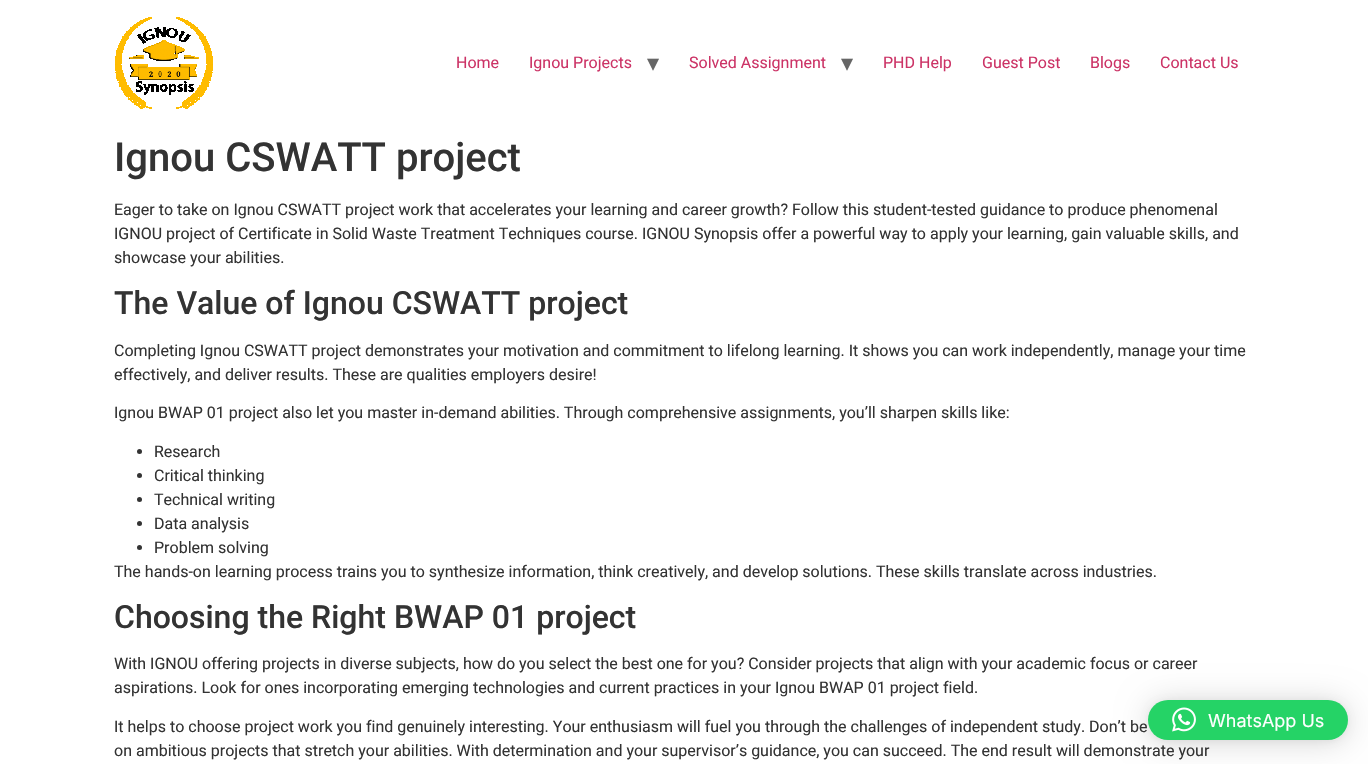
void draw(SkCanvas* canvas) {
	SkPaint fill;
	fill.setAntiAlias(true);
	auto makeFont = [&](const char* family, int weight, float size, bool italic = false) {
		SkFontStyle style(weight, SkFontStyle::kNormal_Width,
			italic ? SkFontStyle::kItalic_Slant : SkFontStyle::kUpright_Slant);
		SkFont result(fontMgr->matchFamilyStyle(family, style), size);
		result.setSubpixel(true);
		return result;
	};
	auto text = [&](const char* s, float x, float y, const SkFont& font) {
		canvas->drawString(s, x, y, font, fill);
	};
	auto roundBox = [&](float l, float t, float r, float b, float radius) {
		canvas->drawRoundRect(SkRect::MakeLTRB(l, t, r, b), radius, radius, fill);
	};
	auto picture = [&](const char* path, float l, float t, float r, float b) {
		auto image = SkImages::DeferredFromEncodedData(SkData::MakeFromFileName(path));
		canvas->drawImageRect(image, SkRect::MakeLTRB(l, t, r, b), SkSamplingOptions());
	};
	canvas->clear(0xFFFFFFFF);
	picture("image0.png", 115, 17, 213, 109);
	fill.setColor(0xFF333333);
	canvas->drawCircle(139.5f, 451.5f, 2.5f, fill);
	canvas->drawCircle(139.5f, 475.5f, 2.5f, fill);
	canvas->drawCircle(139.5f, 499.5f, 2.5f, fill);
	canvas->drawCircle(139.5f, 523.5f, 2.5f, fill);
	canvas->drawCircle(139.5f, 547.5f, 2.5f, fill);
	fill.setColor(0x29000000);
	fill.setMaskFilter(SkMaskFilter::MakeBlur(kNormal_SkBlurStyle, 16));
	canvas->drawRoundRect(SkRect::MakeLTRB(1148, 702, 1348, 742), 20, 20, fill);
	fill.setMaskFilter(nullptr);
	fill.setColor(0x0F000000);
	fill.setMaskFilter(SkMaskFilter::MakeBlur(kNormal_SkBlurStyle, 3));
	canvas->drawRoundRect(SkRect::MakeLTRB(1148, 701, 1348, 741), 20, 20, fill);
	fill.setMaskFilter(nullptr);
	fill.setColor(0xFF25D366);
	roundBox(1148, 700, 1348, 740, 20);
	picture("image1.png", 1172, 707, 1196, 732);
	auto font1 = makeFont("Roboto", 400, 16);
	fill.setColor(0xFFCC3366);
	text("Home", 456, 68, font1);
	text("Ignou Projects", 529, 68, font1);
	auto font2 = makeFont("DejaVu Sans", 400, 24);
	fill.setColor(0xFF666666);
	text("▾", 647, 71, font2);
	fill.setColor(0xFFCC3366);
	text("Solved Assignment", 689, 68, font1);
	fill.setColor(0xFF666666);
	text("▾", 841, 71, font2);
	fill.setColor(0xFFCC3366);
	text("PHD Help", 883, 68, font1);
	text("Guest Post", 982, 68, font1);
	text("Blogs", 1090, 68, font1);
	text("Contact Us", 1160, 68, font1);
	auto font3 = makeFont("Roboto", 500, 40);
	fill.setColor(0xFF333333);
	text("Ignou CSWATT project", 114, 171, font3);
	text("Eager to take on Ignou CSWATT project work that accelerates your learning and career growth? Follow this student-tested guidance to produce phenomenal", 114, 215, font1);
	text("IGNOU project of Certificate in Solid Waste Treatment Techniques course. IGNOU Synopsis offer a powerful way to apply your learning, gain valuable skills, and", 114, 239, font1);
	text("showcase your abilities.", 114, 263, font1);
	auto font4 = makeFont("Roboto", 500, 32);
	text("The Value of Ignou CSWATT project", 114, 314, font4);
	text("Completing Ignou CSWATT project demonstrates your motivation and commitment to lifelong learning. It shows you can work independently, manage your time", 114, 356, font1);
	text("effectively, and deliver results. These are qualities employers desire!", 114, 380, font1);
	text("Ignou BWAP 01 project also let you master in-demand abilities. Through comprehensive assignments, you’ll sharpen skills like:", 114, 418, font1);
	text("Research", 154, 457, font1);
	text("Critical thinking", 154, 481, font1);
	text("Technical writing", 154, 505, font1);
	text("Data analysis", 154, 529, font1);
	text("Problem solving", 154, 553, font1);
	text("The hands-on learning process trains you to synthesize information, think creatively, and develop solutions. These skills translate across industries.", 114, 577, font1);
	text("Choosing the Right BWAP 01 project", 114, 628, font4);
	text("With IGNOU offering projects in diverse subjects, how do you select the best one for you? Consider projects that align with your academic focus or career", 114, 669, font1);
	text("aspirations. Look for ones incorporating emerging technologies and current practices in your Ignou BWAP 01 project field.", 114, 693, font1);
	text("It helps to choose project work you find genuinely interesting. Your enthusiasm will fuel you through the challenges of independent study. Don’t be", 114, 732, font1);
	text("on ambitious projects that stretch your abilities. With determination and your supervisor’s guidance, you can succeed. The end result will demonstrate your", 114, 756, font1);
	auto font5 = makeFont("Inter", 400, 18);
	fill.setColor(0xFFFFFFFF);
	text("WhatsApp Us", 1208, 727, font5);
}
